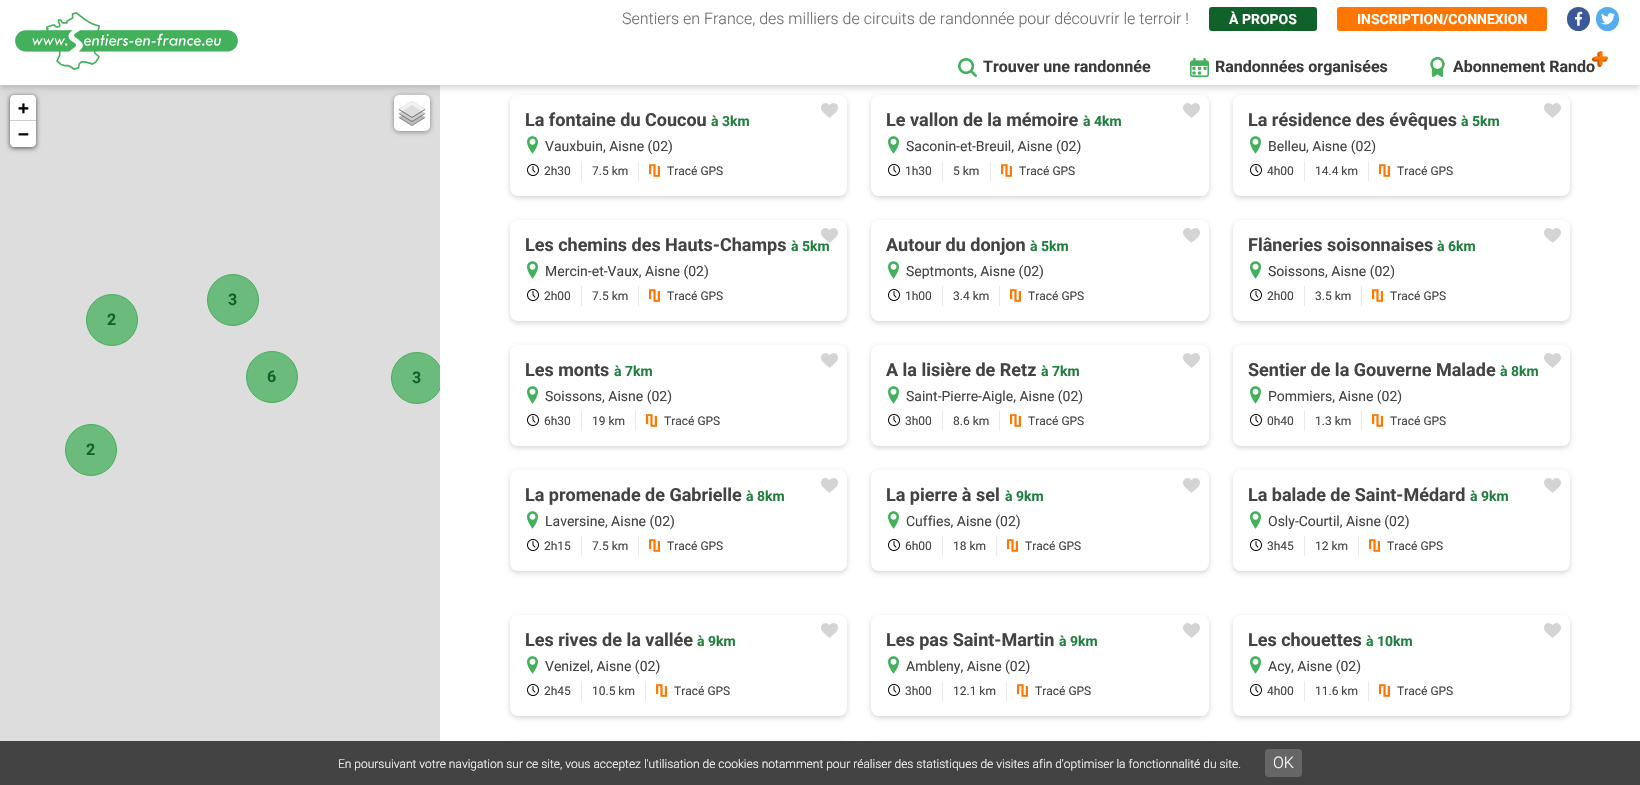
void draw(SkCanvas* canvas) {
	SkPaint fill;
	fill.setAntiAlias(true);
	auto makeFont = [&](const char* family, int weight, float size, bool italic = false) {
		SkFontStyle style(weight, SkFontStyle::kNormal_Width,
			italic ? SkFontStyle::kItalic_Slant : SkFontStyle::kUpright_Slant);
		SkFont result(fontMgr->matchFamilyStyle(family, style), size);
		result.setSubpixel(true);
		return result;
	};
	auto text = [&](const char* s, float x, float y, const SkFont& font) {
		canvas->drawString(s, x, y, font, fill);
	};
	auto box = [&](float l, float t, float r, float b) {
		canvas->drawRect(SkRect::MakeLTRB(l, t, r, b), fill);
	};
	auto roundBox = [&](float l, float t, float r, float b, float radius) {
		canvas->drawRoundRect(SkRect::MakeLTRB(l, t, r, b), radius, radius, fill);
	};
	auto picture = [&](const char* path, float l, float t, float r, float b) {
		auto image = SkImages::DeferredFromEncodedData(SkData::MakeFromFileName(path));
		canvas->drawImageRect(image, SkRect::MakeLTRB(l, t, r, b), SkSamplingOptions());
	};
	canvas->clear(0xFFFFFFFF);
	fill.setColor(0xFFDDDDDD);
	box(0, 85, 440, 741);
	fill.setColor(0xA6000000);
	fill.setMaskFilter(SkMaskFilter::MakeBlur(kNormal_SkBlurStyle, 2.5f));
	canvas->drawRoundRect(SkRect::MakeLTRB(10, 96, 36, 148), 4, 4, fill);
	fill.setMaskFilter(nullptr);
	fill.setColor(0xFFFFFFFF);
	canvas->drawPath(SkPathBuilder().moveTo(14, 95).lineTo(32, 95).cubicTo(34, 95, 36, 97, 36, 99).lineTo(36, 121).lineTo(10, 121).lineTo(10, 99).cubicTo(10, 97, 12, 95, 14, 95).close().detach(), fill);
	fill.setColor(0x66000000);
	fill.setMaskFilter(SkMaskFilter::MakeBlur(kNormal_SkBlurStyle, 2.5f));
	canvas->drawRoundRect(SkRect::MakeLTRB(394, 96, 430, 132), 5, 5, fill);
	fill.setMaskFilter(nullptr);
	fill.setColor(0xFFFFFFFF);
	roundBox(394, 95, 430, 131, 5);
	fill.setColor(0x29000000);
	fill.setMaskFilter(SkMaskFilter::MakeBlur(kNormal_SkBlurStyle, 2.5f));
	canvas->drawRoundRect(SkRect::MakeLTRB(510, 97, 847, 198), 8, 8, fill);
	fill.setMaskFilter(nullptr);
	fill.setColor(0xFFFFFFFF);
	roundBox(510, 95, 847, 196, 8);
	fill.setColor(0x29000000);
	fill.setMaskFilter(SkMaskFilter::MakeBlur(kNormal_SkBlurStyle, 2.5f));
	canvas->drawRoundRect(SkRect::MakeLTRB(871, 97, 1209, 198), 8, 8, fill);
	fill.setMaskFilter(nullptr);
	fill.setColor(0xFFFFFFFF);
	roundBox(871, 95, 1209, 196, 8);
	fill.setColor(0x29000000);
	fill.setMaskFilter(SkMaskFilter::MakeBlur(kNormal_SkBlurStyle, 2.5f));
	canvas->drawRoundRect(SkRect::MakeLTRB(1233, 97, 1570, 198), 8, 8, fill);
	fill.setMaskFilter(nullptr);
	fill.setColor(0xFFFFFFFF);
	roundBox(1233, 95, 1570, 196, 8);
	fill.setColor(0x29000000);
	fill.setMaskFilter(SkMaskFilter::MakeBlur(kNormal_SkBlurStyle, 3));
	canvas->drawRect(SkRect::MakeLTRB(0, 3, 1640, 88), fill);
	fill.setMaskFilter(nullptr);
	fill.setColor(0xFFFFFFFF);
	box(0, 0, 1640, 85);
	picture("image0.png", 15, 12, 238, 70);
	fill.setColor(0xFF11612B);
	roundBox(1209, 7, 1317, 31, 3);
	fill.setColor(0xFFFF7700);
	roundBox(1337, 7, 1547, 31, 3);
	fill.setColor(0xFF3B5998);
	roundBox(1567, 7, 1590, 31, 11.5f);
	picture("image1.png", 1575, 11, 1583, 26);
	fill.setColor(0xFF55ACEE);
	roundBox(1596, 7, 1619, 31, 11.5f);
	picture("image2.png", 1601, 13, 1615, 25);
	picture("image3.png", 958, 58, 977, 77);
	picture("image4.png", 1190, 58, 1209, 77);
	picture("image5.png", 1430, 57, 1445, 77);
	fill.setColor(0xFFCCCCCC);
	box(10, 120, 36, 121);
	fill.setColor(0xFFFFFFFF);
	canvas->drawPath(SkPathBuilder().moveTo(10, 121).lineTo(36, 121).lineTo(36, 143).cubicTo(36, 145, 34, 147, 32, 147).lineTo(14, 147).cubicTo(12, 147, 10, 145, 10, 143).close().detach(), fill);
	picture("image7.png", 399, 101, 425, 126);
	fill.setColor(0xFF6ABB7C);
	canvas->drawCircle(233, 300, 25.5f, fill);
	fill.setStyle(SkPaint::kStroke_Style);
	fill.setStrokeWidth(1);
	fill.setColor(0xFF43B05B);
	canvas->drawCircle(233, 300, 25.5f, fill);
	fill.setStyle(SkPaint::kFill_Style);
	fill.setColor(0xFF6ABB7C);
	canvas->drawCircle(112, 320, 25.5f, fill);
	fill.setStyle(SkPaint::kStroke_Style);
	fill.setColor(0xFF43B05B);
	canvas->drawCircle(112, 320, 25.5f, fill);
	fill.setStyle(SkPaint::kFill_Style);
	fill.setColor(0xFF6ABB7C);
	canvas->drawCircle(272, 377, 25.5f, fill);
	fill.setStyle(SkPaint::kStroke_Style);
	fill.setColor(0xFF43B05B);
	canvas->drawCircle(272, 377, 25.5f, fill);
	canvas->save();
	canvas->clipRect(SkRect::MakeLTRB(0, 85, 440, 785));
	fill.setStyle(SkPaint::kFill_Style);
	fill.setColor(0xFF6ABB7C);
	canvas->drawCircle(417, 378, 25.5f, fill);
	fill.setStyle(SkPaint::kStroke_Style);
	fill.setColor(0xFF43B05B);
	canvas->drawCircle(417, 378, 25.5f, fill);
	canvas->restore();
	fill.setStyle(SkPaint::kFill_Style);
	fill.setColor(0xFF6ABB7C);
	canvas->drawCircle(91, 450, 25.5f, fill);
	fill.setStyle(SkPaint::kStroke_Style);
	fill.setColor(0xFF43B05B);
	canvas->drawCircle(91, 450, 25.5f, fill);
	picture("image8.png", 821, 103, 838, 118);
	picture("image9.png", 527, 136, 538, 154);
	picture("image10.png", 527, 164, 539, 176);
	fill.setStyle(SkPaint::kFill_Style);
	fill.setColor(0xFFE9E9E9);
	box(581, 161, 582, 181);
	picture("image11.png", 649, 164, 660, 177);
	box(638, 161, 639, 181);
	picture("image8.png", 1183, 103, 1200, 118);
	picture("image9.png", 888, 136, 899, 154);
	picture("image10.png", 888, 164, 900, 176);
	box(942, 161, 943, 181);
	picture("image11.png", 1001, 164, 1012, 177);
	box(990, 161, 991, 181);
	picture("image8.png", 1544, 103, 1561, 118);
	picture("image9.png", 1250, 136, 1261, 154);
	picture("image10.png", 1250, 164, 1262, 176);
	box(1304, 161, 1305, 181);
	picture("image11.png", 1379, 164, 1390, 177);
	box(1368, 161, 1369, 181);
	fill.setColor(0x29000000);
	fill.setMaskFilter(SkMaskFilter::MakeBlur(kNormal_SkBlurStyle, 2.5f));
	canvas->drawRoundRect(SkRect::MakeLTRB(510, 222, 847, 323), 8, 8, fill);
	fill.setMaskFilter(nullptr);
	fill.setColor(0xFFFFFFFF);
	roundBox(510, 220, 847, 321, 8);
	picture("image9.png", 527, 261, 538, 279);
	picture("image10.png", 527, 289, 539, 301);
	fill.setColor(0xFFE9E9E9);
	box(581, 286, 582, 306);
	picture("image11.png", 649, 289, 660, 302);
	box(638, 286, 639, 306);
	fill.setColor(0x29000000);
	fill.setMaskFilter(SkMaskFilter::MakeBlur(kNormal_SkBlurStyle, 2.5f));
	canvas->drawRoundRect(SkRect::MakeLTRB(871, 222, 1209, 323), 8, 8, fill);
	fill.setMaskFilter(nullptr);
	fill.setColor(0xFFFFFFFF);
	roundBox(871, 220, 1209, 321, 8);
	picture("image8.png", 1183, 228, 1200, 243);
	picture("image9.png", 888, 261, 899, 279);
	picture("image10.png", 888, 289, 900, 301);
	fill.setColor(0xFFE9E9E9);
	box(942, 286, 943, 306);
	picture("image11.png", 1010, 289, 1021, 302);
	box(999, 286, 1000, 306);
	fill.setColor(0x29000000);
	fill.setMaskFilter(SkMaskFilter::MakeBlur(kNormal_SkBlurStyle, 2.5f));
	canvas->drawRoundRect(SkRect::MakeLTRB(1233, 222, 1570, 323), 8, 8, fill);
	fill.setMaskFilter(nullptr);
	fill.setColor(0xFFFFFFFF);
	roundBox(1233, 220, 1570, 321, 8);
	picture("image8.png", 1544, 228, 1561, 243);
	picture("image9.png", 1250, 261, 1261, 279);
	picture("image10.png", 1250, 289, 1262, 301);
	fill.setColor(0xFFE9E9E9);
	box(1304, 286, 1305, 306);
	picture("image11.png", 1372, 289, 1383, 302);
	box(1361, 286, 1362, 306);
	fill.setColor(0x29000000);
	fill.setMaskFilter(SkMaskFilter::MakeBlur(kNormal_SkBlurStyle, 2.5f));
	canvas->drawRoundRect(SkRect::MakeLTRB(510, 347, 847, 448), 8, 8, fill);
	fill.setMaskFilter(nullptr);
	fill.setColor(0xFFFFFFFF);
	roundBox(510, 345, 847, 446, 8);
	picture("image8.png", 821, 353, 838, 368);
	picture("image9.png", 527, 386, 538, 404);
	picture("image10.png", 527, 414, 539, 426);
	fill.setColor(0xFFE9E9E9);
	box(581, 411, 582, 431);
	picture("image11.png", 646, 414, 657, 427);
	box(635, 411, 636, 431);
	fill.setColor(0x29000000);
	fill.setMaskFilter(SkMaskFilter::MakeBlur(kNormal_SkBlurStyle, 2.5f));
	canvas->drawRoundRect(SkRect::MakeLTRB(871, 347, 1209, 448), 8, 8, fill);
	fill.setMaskFilter(nullptr);
	fill.setColor(0xFFFFFFFF);
	roundBox(871, 345, 1209, 446, 8);
	picture("image8.png", 1183, 353, 1200, 368);
	picture("image9.png", 888, 386, 899, 404);
	picture("image10.png", 888, 414, 900, 426);
	fill.setColor(0xFFE9E9E9);
	box(942, 411, 943, 431);
	picture("image11.png", 1010, 414, 1021, 427);
	box(999, 411, 1000, 431);
	fill.setColor(0x29000000);
	fill.setMaskFilter(SkMaskFilter::MakeBlur(kNormal_SkBlurStyle, 2.5f));
	canvas->drawRoundRect(SkRect::MakeLTRB(1233, 347, 1570, 448), 8, 8, fill);
	fill.setMaskFilter(nullptr);
	fill.setColor(0xFFFFFFFF);
	roundBox(1233, 345, 1570, 446, 8);
	picture("image8.png", 1544, 353, 1561, 368);
	picture("image9.png", 1250, 386, 1261, 404);
	picture("image10.png", 1250, 414, 1262, 426);
	fill.setColor(0xFFE9E9E9);
	box(1304, 411, 1305, 431);
	picture("image11.png", 1372, 414, 1383, 427);
	box(1361, 411, 1362, 431);
	fill.setColor(0x29000000);
	fill.setMaskFilter(SkMaskFilter::MakeBlur(kNormal_SkBlurStyle, 2.5f));
	canvas->drawRoundRect(SkRect::MakeLTRB(510, 472, 847, 573), 8, 8, fill);
	fill.setMaskFilter(nullptr);
	fill.setColor(0xFFFFFFFF);
	roundBox(510, 470, 847, 571, 8);
	picture("image8.png", 821, 478, 838, 493);
	picture("image9.png", 527, 511, 538, 529);
	picture("image10.png", 527, 539, 539, 551);
	fill.setColor(0xFFE9E9E9);
	box(581, 536, 582, 556);
	picture("image11.png", 649, 539, 660, 552);
	box(638, 536, 639, 556);
	fill.setColor(0x29000000);
	fill.setMaskFilter(SkMaskFilter::MakeBlur(kNormal_SkBlurStyle, 2.5f));
	canvas->drawRoundRect(SkRect::MakeLTRB(871, 472, 1209, 573), 8, 8, fill);
	fill.setMaskFilter(nullptr);
	fill.setColor(0xFFFFFFFF);
	roundBox(871, 470, 1209, 571, 8);
	picture("image8.png", 1183, 478, 1200, 493);
	picture("image9.png", 888, 511, 899, 529);
	picture("image10.png", 888, 539, 900, 551);
	fill.setColor(0xFFE9E9E9);
	box(942, 536, 943, 556);
	picture("image11.png", 1007, 539, 1018, 552);
	box(996, 536, 997, 556);
	fill.setColor(0x29000000);
	fill.setMaskFilter(SkMaskFilter::MakeBlur(kNormal_SkBlurStyle, 2.5f));
	canvas->drawRoundRect(SkRect::MakeLTRB(1233, 472, 1570, 573), 8, 8, fill);
	fill.setMaskFilter(nullptr);
	fill.setColor(0xFFFFFFFF);
	roundBox(1233, 470, 1570, 571, 8);
	picture("image8.png", 1544, 478, 1561, 493);
	picture("image9.png", 1250, 511, 1261, 529);
	picture("image10.png", 1250, 539, 1262, 551);
	fill.setColor(0xFFE9E9E9);
	box(1304, 536, 1305, 556);
	picture("image11.png", 1369, 539, 1380, 552);
	box(1358, 536, 1359, 556);
	fill.setColor(0x29000000);
	fill.setMaskFilter(SkMaskFilter::MakeBlur(kNormal_SkBlurStyle, 2.5f));
	canvas->drawRoundRect(SkRect::MakeLTRB(510, 617, 847, 718), 8, 8, fill);
	fill.setMaskFilter(nullptr);
	fill.setColor(0xFFFFFFFF);
	roundBox(510, 615, 847, 716, 8);
	picture("image8.png", 821, 623, 838, 638);
	picture("image9.png", 527, 656, 538, 674);
	picture("image10.png", 527, 684, 539, 696);
	fill.setColor(0xFFE9E9E9);
	box(581, 681, 582, 701);
	picture("image11.png", 656, 684, 667, 697);
	box(645, 681, 646, 701);
	fill.setColor(0x29000000);
	fill.setMaskFilter(SkMaskFilter::MakeBlur(kNormal_SkBlurStyle, 2.5f));
	canvas->drawRoundRect(SkRect::MakeLTRB(871, 617, 1209, 718), 8, 8, fill);
	fill.setMaskFilter(nullptr);
	fill.setColor(0xFFFFFFFF);
	roundBox(871, 615, 1209, 716, 8);
	picture("image8.png", 1183, 623, 1200, 638);
	picture("image9.png", 888, 656, 899, 674);
	picture("image10.png", 888, 684, 900, 696);
	fill.setColor(0xFFE9E9E9);
	box(942, 681, 943, 701);
	picture("image11.png", 1017, 684, 1028, 697);
	box(1006, 681, 1007, 701);
	fill.setColor(0x29000000);
	fill.setMaskFilter(SkMaskFilter::MakeBlur(kNormal_SkBlurStyle, 2.5f));
	canvas->drawRoundRect(SkRect::MakeLTRB(1233, 617, 1570, 718), 8, 8, fill);
	fill.setMaskFilter(nullptr);
	fill.setColor(0xFFFFFFFF);
	roundBox(1233, 615, 1570, 716, 8);
	picture("image8.png", 1544, 623, 1561, 638);
	picture("image9.png", 1250, 656, 1261, 674);
	picture("image10.png", 1250, 684, 1262, 696);
	fill.setColor(0xFFE9E9E9);
	box(1304, 681, 1305, 701);
	picture("image11.png", 1379, 684, 1390, 697);
	box(1368, 681, 1369, 701);
	fill.setColor(0x29000000);
	fill.setMaskFilter(SkMaskFilter::MakeBlur(kNormal_SkBlurStyle, 2.5f));
	canvas->drawRoundRect(SkRect::MakeLTRB(510, 742, 847, 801), 8, 8, fill);
	fill.setMaskFilter(nullptr);
	fill.setColor(0xFFFFFFFF);
	roundBox(510, 740, 847, 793, 8);
	fill.setColor(0x29000000);
	fill.setMaskFilter(SkMaskFilter::MakeBlur(kNormal_SkBlurStyle, 2.5f));
	canvas->drawRoundRect(SkRect::MakeLTRB(871, 742, 1209, 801), 8, 8, fill);
	fill.setMaskFilter(nullptr);
	fill.setColor(0xFFFFFFFF);
	roundBox(871, 740, 1209, 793, 8);
	fill.setColor(0xFF434343);
	box(0, 741, 1640, 785);
	fill.setColor(0xFF666666);
	roundBox(1265, 749, 1302, 777, 4);
	auto font1 = makeFont("Roboto", 300, 16);
	fill.setColor(0xFF6A6A6A);
	text("Sentiers en France, des milliers de circuits de randonnée pour découvrir le terroir !", 622, 24, font1);
	auto font2 = makeFont("Roboto", 700, 14);
	fill.setColor(0xFFFFFFFF);
	text("À PROPOS", 1229, 24, font2);
	text("INSCRIPTION/CONNEXION", 1357, 24, font2);
	auto font3 = makeFont("Roboto", 700, 16);
	fill.setColor(0xFF3A3A3A);
	text("Trouver une randonnée", 983, 72, font3);
	text("Randonnées organisées", 1215, 72, font3);
	text("Abonnement Rando", 1453, 72, font3);
	picture("image6.png", 1592, 51, 1608, 67);
	auto font4 = makeFont("DejaVu Sans Mono", 700, 18);
	fill.setColor(0xFF000000);
	text("+", 18, 114, font4);
	text("−", 18, 140, font4);
	fill.setColor(0xFF11612B);
	text("3", 228, 305, font3);
	text("2", 107, 325, font3);
	text("6", 267, 382, font3);
	text("3", 412, 383, font3);
	text("2", 86, 455, font3);
	auto font5 = makeFont("Roboto", 700, 18);
	fill.setColor(0xFF434343);
	text("La fontaine du Coucou", 525, 126, font5);
	fill.setColor(0xFF207F3E);
	text("à 3km", 711, 126, font2);
	auto font6 = makeFont("Roboto", 400, 14);
	fill.setColor(0xFF434343);
	text("Vauxbuin, Aisne (02)", 545, 151, font6);
	auto font7 = makeFont("Roboto", 400, 12);
	text("2h30", 544, 175, font7);
	text("7.5 km", 592, 175, font7);
	text("Tracé GPS", 667, 175, font7);
	text("Le vallon de la mémoire", 886, 126, font5);
	fill.setColor(0xFF207F3E);
	text("à 4km", 1083, 126, font2);
	fill.setColor(0xFF434343);
	text("Saconin-et-Breuil, Aisne (02)", 906, 151, font6);
	text("1h30", 905, 175, font7);
	text("5 km", 953, 175, font7);
	text("Tracé GPS", 1019, 175, font7);
	text("La résidence des évêques", 1248, 126, font5);
	fill.setColor(0xFF207F3E);
	text("à 5km", 1461, 126, font2);
	fill.setColor(0xFF434343);
	text("Belleu, Aisne (02)", 1268, 151, font6);
	text("4h00", 1267, 175, font7);
	text("14.4 km", 1315, 175, font7);
	text("Tracé GPS", 1397, 175, font7);
	text("Les chemins des Hauts-Champs", 525, 251, font5);
	fill.setColor(0xFF207F3E);
	text("à 5km", 791, 251, font2);
	picture("image8.png", 821, 228, 838, 243);
	fill.setColor(0xFF434343);
	text("Mercin-et-Vaux, Aisne (02)", 545, 276, font6);
	text("2h00", 544, 300, font7);
	text("7.5 km", 592, 300, font7);
	text("Tracé GPS", 667, 300, font7);
	text("Autour du donjon", 886, 251, font5);
	fill.setColor(0xFF207F3E);
	text("à 5km", 1030, 251, font2);
	fill.setColor(0xFF434343);
	text("Septmonts, Aisne (02)", 906, 276, font6);
	text("1h00", 905, 300, font7);
	text("3.4 km", 953, 300, font7);
	text("Tracé GPS", 1028, 300, font7);
	text("Flâneries soisonnaises", 1248, 251, font5);
	fill.setColor(0xFF207F3E);
	text("à 6km", 1437, 251, font2);
	fill.setColor(0xFF434343);
	text("Soissons, Aisne (02)", 1268, 276, font6);
	text("2h00", 1267, 300, font7);
	text("3.5 km", 1315, 300, font7);
	text("Tracé GPS", 1390, 300, font7);
	text("Les monts", 525, 376, font5);
	fill.setColor(0xFF207F3E);
	text("à 7km", 614, 376, font2);
	fill.setColor(0xFF434343);
	text("Soissons, Aisne (02)", 545, 401, font6);
	text("6h30", 544, 425, font7);
	text("19 km", 592, 425, font7);
	text("Tracé GPS", 664, 425, font7);
	text("A la lisière de Retz", 886, 376, font5);
	fill.setColor(0xFF207F3E);
	text("à 7km", 1041, 376, font2);
	fill.setColor(0xFF434343);
	text("Saint-Pierre-Aigle, Aisne (02)", 906, 401, font6);
	text("3h00", 905, 425, font7);
	text("8.6 km", 953, 425, font7);
	text("Tracé GPS", 1028, 425, font7);
	text("Sentier de la Gouverne Malade", 1248, 376, font5);
	fill.setColor(0xFF207F3E);
	text("à 8km", 1500, 376, font2);
	fill.setColor(0xFF434343);
	text("Pommiers, Aisne (02)", 1268, 401, font6);
	text("0h40", 1267, 425, font7);
	text("1.3 km", 1315, 425, font7);
	text("Tracé GPS", 1390, 425, font7);
	text("La promenade de Gabrielle", 525, 501, font5);
	fill.setColor(0xFF207F3E);
	text("à 8km", 746, 501, font2);
	fill.setColor(0xFF434343);
	text("Laversine, Aisne (02)", 545, 526, font6);
	text("2h15", 544, 550, font7);
	text("7.5 km", 592, 550, font7);
	text("Tracé GPS", 667, 550, font7);
	text("La pierre à sel", 886, 501, font5);
	fill.setColor(0xFF207F3E);
	text("à 9km", 1005, 501, font2);
	fill.setColor(0xFF434343);
	text("Cuffies, Aisne (02)", 906, 526, font6);
	text("6h00", 905, 550, font7);
	text("18 km", 953, 550, font7);
	text("Tracé GPS", 1025, 550, font7);
	text("La balade de Saint-Médard", 1248, 501, font5);
	fill.setColor(0xFF207F3E);
	text("à 9km", 1470, 501, font2);
	fill.setColor(0xFF434343);
	text("Osly-Courtil, Aisne (02)", 1268, 526, font6);
	text("3h45", 1267, 550, font7);
	text("12 km", 1315, 550, font7);
	text("Tracé GPS", 1387, 550, font7);
	text("Les rives de la vallée", 525, 646, font5);
	fill.setColor(0xFF207F3E);
	text("à 9km", 697, 646, font2);
	fill.setColor(0xFF434343);
	text("Venizel, Aisne (02)", 545, 671, font6);
	text("2h45", 544, 695, font7);
	text("10.5 km", 592, 695, font7);
	text("Tracé GPS", 674, 695, font7);
	text("Les pas Saint-Martin", 886, 646, font5);
	fill.setColor(0xFF207F3E);
	text("à 9km", 1059, 646, font2);
	fill.setColor(0xFF434343);
	text("Ambleny, Aisne (02)", 906, 671, font6);
	text("3h00", 905, 695, font7);
	text("12.1 km", 953, 695, font7);
	text("Tracé GPS", 1035, 695, font7);
	text("Les chouettes", 1248, 646, font5);
	fill.setColor(0xFF207F3E);
	text("à 10km", 1366, 646, font2);
	fill.setColor(0xFF434343);
	text("Acy, Aisne (02)", 1268, 671, font6);
	text("4h00", 1267, 695, font7);
	text("11.6 km", 1315, 695, font7);
	text("Tracé GPS", 1397, 695, font7);
	auto font8 = makeFont("Roboto", 300, 12);
	fill.setColor(0xFFFFFFFF);
	text("En poursuivant votre navigation sur ce site, vous acceptez l'utilisation de cookies notamment pour réaliser des statistiques de visites afin d'optimiser la fonctionnalité du site.", 338, 768, font8);
	text("OK", 1273, 768, font1);
}
